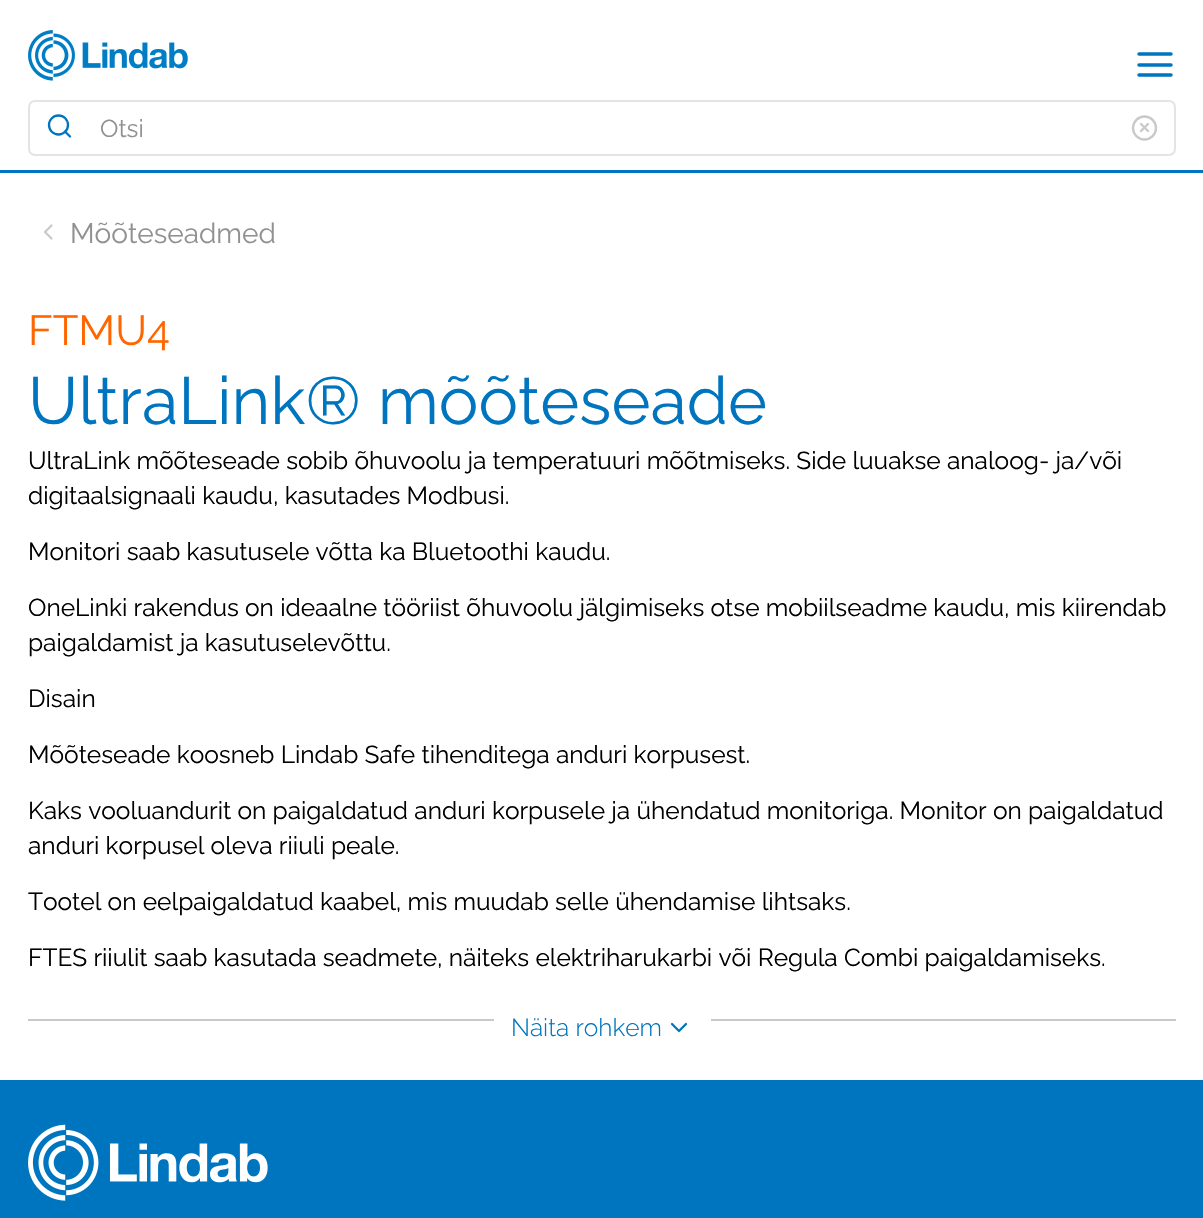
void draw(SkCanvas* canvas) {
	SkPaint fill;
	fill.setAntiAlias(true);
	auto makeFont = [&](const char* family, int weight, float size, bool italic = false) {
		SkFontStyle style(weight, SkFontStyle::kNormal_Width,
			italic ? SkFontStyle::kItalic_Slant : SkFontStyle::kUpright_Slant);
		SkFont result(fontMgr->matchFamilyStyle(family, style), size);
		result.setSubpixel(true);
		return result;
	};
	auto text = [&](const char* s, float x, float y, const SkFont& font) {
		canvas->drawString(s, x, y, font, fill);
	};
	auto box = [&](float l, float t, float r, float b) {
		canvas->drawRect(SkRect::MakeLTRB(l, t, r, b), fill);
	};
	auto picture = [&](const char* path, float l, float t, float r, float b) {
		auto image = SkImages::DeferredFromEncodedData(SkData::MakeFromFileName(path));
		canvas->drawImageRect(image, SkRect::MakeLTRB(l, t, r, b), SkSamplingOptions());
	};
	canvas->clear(0xFFFFFFFF);
	fill.setColor(0xFF0075BF);
	box(0, 170, 1203, 173);
	picture("image0.png", 28, 30, 188, 81);
	fill.setStyle(SkPaint::kStroke_Style);
	fill.setStrokeWidth(3.5f);
	fill.setStrokeCap(SkPaint::kRound_Cap);
	fill.setStrokeJoin(SkPaint::kRound_Join);
	canvas->drawPath(SkPathBuilder().moveTo(1139, 65).lineTo(1171, 65).moveTo(1139, 54).lineTo(1171, 54).moveTo(1139, 75).lineTo(1171, 75).detach(), fill);
	fill.setStrokeWidth(2);
	fill.setStrokeCap(SkPaint::kButt_Cap);
	fill.setStrokeJoin(SkPaint::kMiter_Join);
	fill.setColor(0xFFE4E4E4);
	canvas->drawRoundRect(SkRect::MakeLTRB(29, 101, 1175, 155), 6, 6, fill);
	fill.setStrokeWidth(2.3f);
	fill.setColor(0xFF0075BF);
	canvas->drawCircle(58.5f, 125, 9.5f, fill);
	fill.setStrokeCap(SkPaint::kRound_Cap);
	fill.setStrokeJoin(SkPaint::kRound_Join);
	canvas->drawPath(SkPathBuilder().moveTo(70, 136.5f).lineTo(65, 131.5f).detach(), fill);
	fill.setStrokeCap(SkPaint::kButt_Cap);
	fill.setStrokeJoin(SkPaint::kMiter_Join);
	fill.setColor(0xFFC9C9C9);
	canvas->drawCircle(1144.5f, 128, 11.5f, fill);
	fill.setStrokeCap(SkPaint::kRound_Cap);
	fill.setStrokeJoin(SkPaint::kRound_Join);
	canvas->drawPath(SkPathBuilder().moveTo(1148, 124).lineTo(1141, 131).moveTo(1141, 124).lineTo(1148, 131).detach(), fill);
	fill.setStrokeWidth(2.2f);
	canvas->drawPath(SkPathBuilder().moveTo(51.5f, 238.5f).lineTo(45, 232).lineTo(51.5f, 225.5f).detach(), fill);
	fill.setStyle(SkPaint::kFill_Style);
	box(28, 1019, 1176, 1021);
	fill.setColor(0xFFFFFFFF);
	box(494, 1019, 711, 1021);
	fill.setStyle(SkPaint::kStroke_Style);
	fill.setStrokeWidth(2.3f);
	fill.setColor(0xFF0075BF);
	canvas->drawPath(SkPathBuilder().moveTo(672, 1024).lineTo(679, 1031).lineTo(686, 1024).detach(), fill);
	fill.setStyle(SkPaint::kFill_Style);
	box(0, 1080, 1203, 1218);
	picture("image1.png", 28, 1124, 268, 1201);
	auto font1 = makeFont("Raleway", 100, 24.5f);
	fill.setColor(0xFF919191);
	text("Otsi", 100, 137, font1);
	auto font2 = makeFont("Raleway", 100, 28);
	text("Mõõteseadmed", 70, 243, font2);
	auto font3 = makeFont("Raleway", 100, 42);
	fill.setColor(0xFFFF6600);
	text("FTMU4", 28, 345, font3);
	auto font4 = makeFont("Raleway", 100, 66.5f);
	fill.setColor(0xFF0075BF);
	text("UltraLink® mõõteseade", 28, 424, font4);
	fill.setColor(0xFF000000);
	text("UltraLink mõõteseade sobib õhuvoolu ja temperatuuri mõõtmiseks. Side luuakse analoog- ja/või", 28, 469, font1);
	text("digitaalsignaali kaudu, kasutades Modbusi.", 28, 504, font1);
	text("Monitori saab kasutusele võtta ka Bluetoothi kaudu.", 28, 560, font1);
	text("OneLinki rakendus on ideaalne tööriist õhuvoolu jälgimiseks otse mobiilseadme kaudu, mis kiirendab", 28, 616, font1);
	text("paigaldamist ja kasutuselevõttu.", 28, 651, font1);
	text("Disain", 28, 707, font1);
	text("Mõõteseade koosneb Lindab Safe tihenditega anduri korpusest.", 28, 763, font1);
	text("Kaks vooluandurit on paigaldatud anduri korpusele ja ühendatud monitoriga. Monitor on paigaldatud", 28, 819, font1);
	text("anduri korpusel oleva riiuli peale.", 28, 854, font1);
	text("Tootel on eelpaigaldatud kaabel, mis muudab selle ühendamise lihtsaks.", 28, 910, font1);
	text("FTES riiulit saab kasutada seadmete, näiteks elektriharukarbi või Regula Combi paigaldamiseks.", 28, 966, font1);
	auto font5 = makeFont("Raleway", 300, 24.5f);
	fill.setColor(0xFF0075BF);
	text("Näita rohkem", 511, 1036, font5);
}
